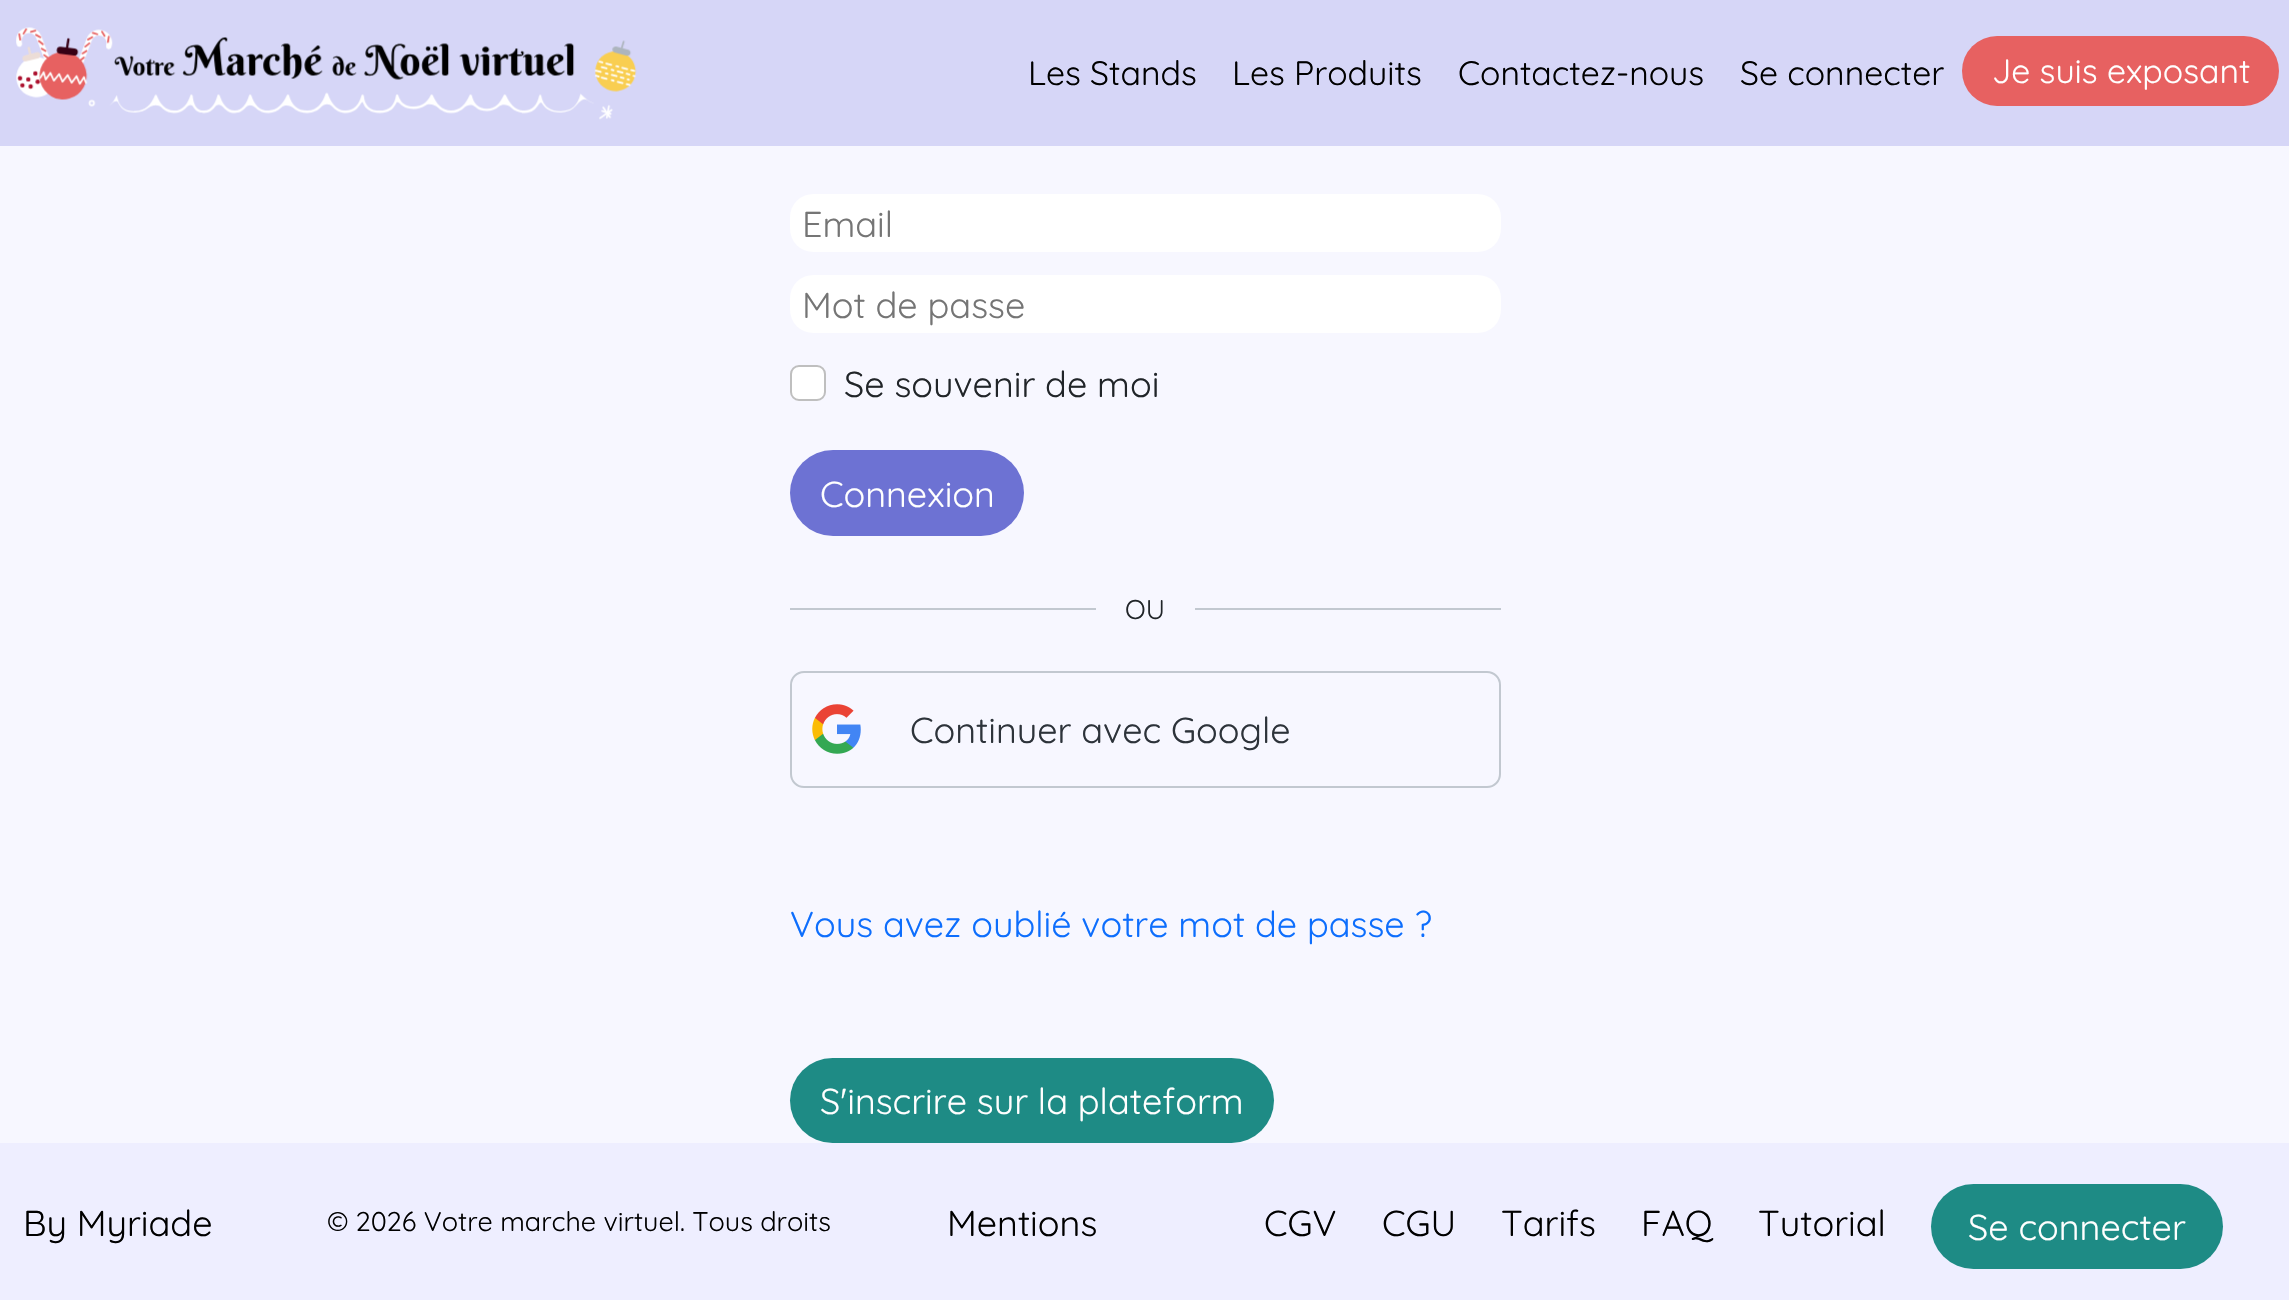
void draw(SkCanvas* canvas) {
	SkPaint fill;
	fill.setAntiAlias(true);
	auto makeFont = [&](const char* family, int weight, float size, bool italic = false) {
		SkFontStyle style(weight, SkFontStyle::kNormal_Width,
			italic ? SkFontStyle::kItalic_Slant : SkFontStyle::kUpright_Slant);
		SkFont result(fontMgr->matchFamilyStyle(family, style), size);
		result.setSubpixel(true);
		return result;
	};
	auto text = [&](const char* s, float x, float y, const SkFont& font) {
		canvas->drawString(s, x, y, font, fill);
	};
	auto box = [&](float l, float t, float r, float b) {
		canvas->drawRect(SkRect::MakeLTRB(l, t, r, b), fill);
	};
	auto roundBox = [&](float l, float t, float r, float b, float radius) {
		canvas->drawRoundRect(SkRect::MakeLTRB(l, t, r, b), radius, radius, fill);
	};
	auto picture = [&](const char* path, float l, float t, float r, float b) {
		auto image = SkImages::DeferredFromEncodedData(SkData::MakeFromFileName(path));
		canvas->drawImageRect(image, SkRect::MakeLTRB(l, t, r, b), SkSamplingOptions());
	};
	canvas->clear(0xFFF7F7FF);
	fill.setColor(0xFFD6D6F7);
	box(0, 0, 2289, 146);
	picture("image0.png", 16, 27, 637, 120);
	fill.setColor(0xFFE76161);
	roundBox(1962, 36, 2279, 106, 35);
	fill.setColor(0xFFFFFFFF);
	roundBox(790, 194, 1501, 252, 23);
	roundBox(790, 275, 1501, 333, 23);
	roundBox(790, 365, 826, 401, 9);
	fill.setStyle(SkPaint::kStroke_Style);
	fill.setStrokeWidth(2);
	fill.setColor(0x40000000);
	canvas->drawRoundRect(SkRect::MakeLTRB(791, 366, 825, 400), 8, 8, fill);
	fill.setStyle(SkPaint::kFill_Style);
	fill.setColor(0xFF6D72D3);
	roundBox(790, 450, 1024, 536, 43);
	fill.setColor(0xFFC2C8D0);
	box(790, 608, 1096, 610);
	box(1195, 608, 1501, 610);
	fill.setStyle(SkPaint::kStroke_Style);
	canvas->drawRoundRect(SkRect::MakeLTRB(791, 672, 1500, 787), 13, 13, fill);
	picture("image1.png", 812, 704, 861, 754);
	fill.setStyle(SkPaint::kFill_Style);
	fill.setColor(0xFF1E8B85);
	roundBox(790, 1058, 1274, 1143, 42.5f);
	fill.setColor(0xFFEEEEFF);
	box(0, 1143, 2289, 1300);
	fill.setColor(0xFF1E8B85);
	roundBox(1931, 1184, 2223, 1269, 42.5f);
	auto font1 = makeFont("Quicksand", 300, 33.75f);
	fill.setColor(0xFF000000);
	text("Les Stands", 1028, 85, font1);
	text("Les Produits", 1232, 85, font1);
	text("Contactez-nous", 1458, 85, font1);
	text("Se connecter", 1740, 85, font1);
	fill.setColor(0xFFFFFFFF);
	text("Je suis exposant", 1992, 83, font1);
	auto font2 = makeFont("Quicksand", 300, 36);
	fill.setColor(0xFF757575);
	text("Email", 802, 237, font2);
	text("Mot de passe", 802, 318, font2);
	fill.setColor(0xFF212529);
	text("Se souvenir de moi", 844, 397, font2);
	fill.setColor(0xFFFFFFFF);
	text("Connexion", 820, 507, font2);
	auto font3 = makeFont("Quicksand", 300, 27);
	fill.setColor(0xFF212529);
	text("OU", 1125, 619, font3);
	fill.setColor(0xFF2D333A);
	text("Continuer avec Google", 910, 743, font2);
	fill.setColor(0xFF0D6EFD);
	text("Vous avez oublié votre mot de passe ?", 790, 937, font2);
	fill.setColor(0xFFFFFFFF);
	text("S'inscrire sur la plateform", 820, 1114, font2);
	fill.setColor(0xFF000000);
	text("By Myriade", 23, 1236, font2);
	text("© 2026 Votre marche virtuel. Tous droits", 327, 1231, font3);
	text("Mentions", 947, 1236, font2);
	text("CGV", 1264, 1236, font2);
	text("CGU", 1382, 1236, font2);
	text("Tarifs", 1501, 1236, font2);
	text("FAQ", 1641, 1236, font2);
	text("Tutorial", 1758, 1236, font2);
	fill.setColor(0xFFFFFFFF);
	text("Se connecter", 1968, 1240, font2);
}
